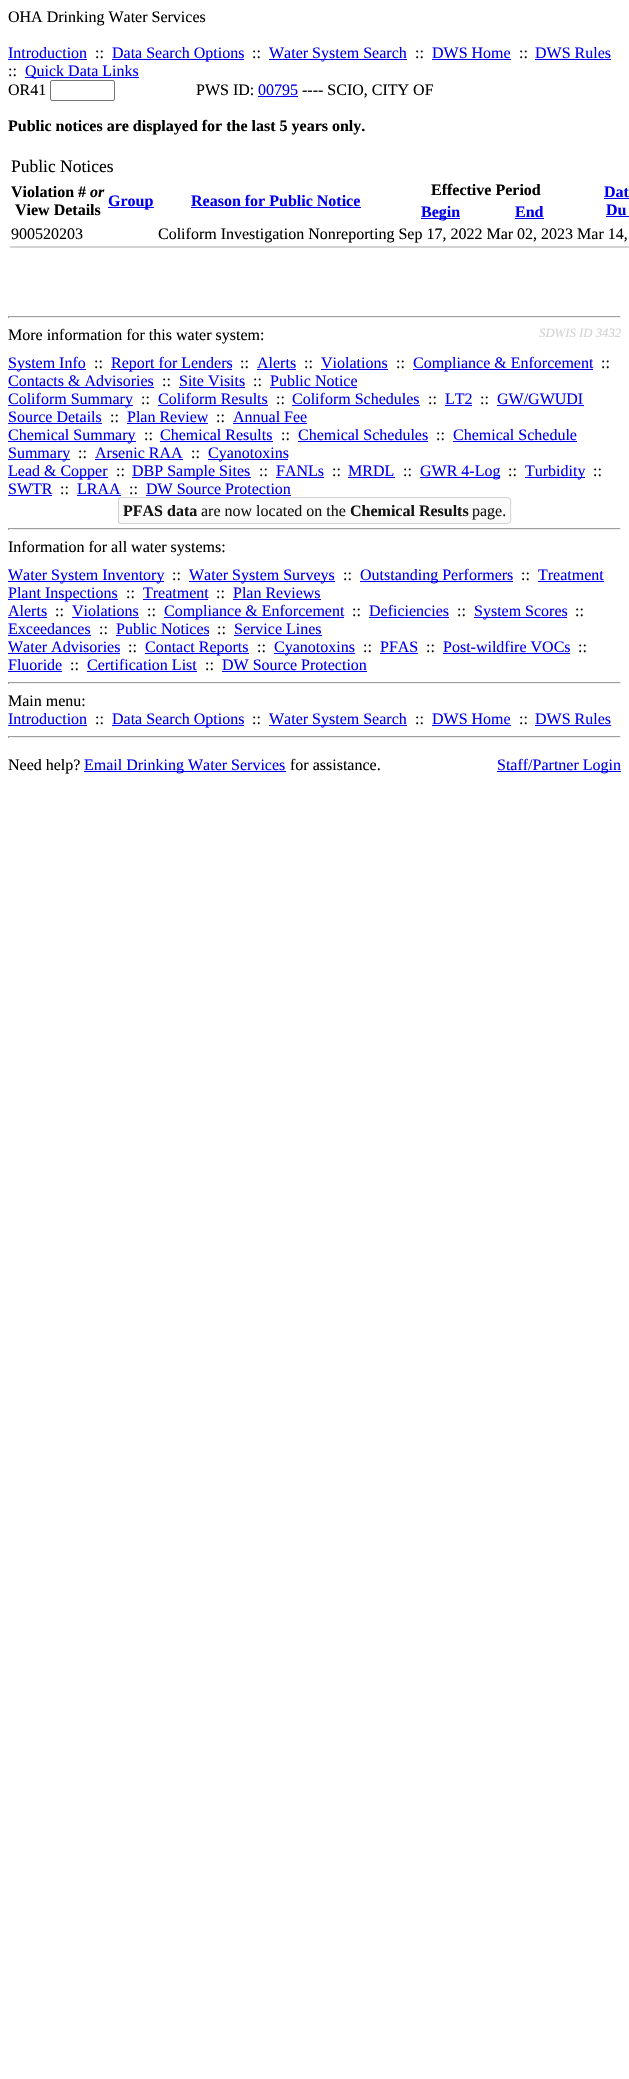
void draw(SkCanvas* canvas) {
	SkPaint fill;
	fill.setAntiAlias(true);
	auto makeFont = [&](const char* family, int weight, float size, bool italic = false) {
		SkFontStyle style(weight, SkFontStyle::kNormal_Width,
			italic ? SkFontStyle::kItalic_Slant : SkFontStyle::kUpright_Slant);
		SkFont result(fontMgr->matchFamilyStyle(family, style), size);
		result.setSubpixel(true);
		return result;
	};
	auto text = [&](const char* s, float x, float y, const SkFont& font) {
		canvas->drawString(s, x, y, font, fill);
	};
	auto box = [&](float l, float t, float r, float b) {
		canvas->drawRect(SkRect::MakeLTRB(l, t, r, b), fill);
	};
	canvas->clear(0xFFFFFFFF);
	fill.setColor(0xFF0000EE);
	box(8, 59, 87, 60);
	box(112, 59, 244, 60);
	box(269, 59, 407, 60);
	box(432, 59, 511, 60);
	box(535, 59, 611, 60);
	box(25, 77, 139, 78);
	fill.setStyle(SkPaint::kStroke_Style);
	fill.setStrokeWidth(1);
	fill.setColor(0xFF767676);
	canvas->drawRoundRect(SkRect::MakeLTRB(50.5f, 80.5f, 114.5f, 100.5f), 1.5f, 1.5f, fill);
	fill.setStyle(SkPaint::kFill_Style);
	fill.setColor(0xFF0000EE);
	box(258, 96, 298, 97);
	box(108, 207, 154, 208);
	box(191, 207, 361, 208);
	box(604, 198, 629, 199);
	box(606, 216, 629, 217);
	box(421, 218, 460, 219);
	box(515, 218, 544, 219);
	fill.setColor(0xFFD3D3D3);
	box(10, 246, 629, 248);
	fill.setColor(0xFF9F9F9F);
	box(8, 316, 621, 317);
	fill.setColor(0xFFEEEEEE);
	box(620, 316, 621, 318);
	box(8, 317, 621, 318);
	fill.setColor(0xFF9F9F9F);
	box(8, 316, 9, 318);
	fill.setColor(0xFF0000EE);
	box(8, 369, 86, 370);
	box(111, 369, 232, 370);
	box(257, 369, 296, 370);
	box(321, 369, 388, 370);
	box(413, 369, 593, 370);
	box(8, 387, 154, 388);
	box(179, 387, 245, 388);
	box(270, 387, 357, 388);
	box(8, 405, 133, 406);
	box(158, 405, 268, 406);
	box(292, 405, 420, 406);
	box(445, 405, 472, 406);
	box(497, 405, 584, 406);
	box(8, 423, 102, 424);
	box(127, 423, 208, 424);
	box(233, 423, 307, 424);
	box(8, 441, 136, 442);
	box(160, 441, 273, 442);
	box(298, 441, 428, 442);
	box(453, 441, 577, 442);
	box(8, 459, 70, 460);
	box(95, 459, 183, 460);
	box(208, 459, 288, 460);
	box(8, 477, 108, 478);
	box(132, 477, 251, 478);
	box(276, 477, 324, 478);
	box(348, 477, 395, 478);
	box(420, 477, 500, 478);
	box(525, 477, 585, 478);
	box(8, 495, 52, 496);
	box(77, 495, 121, 496);
	box(146, 495, 291, 496);
	fill.setColor(0xFFFAFAFA);
	canvas->drawPath(SkPathBuilder().moveTo(121, 497).lineTo(197, 497).lineTo(197, 524).lineTo(121, 524).cubicTo(119.5f, 524, 118, 522.5f, 118, 521).lineTo(118, 500).cubicTo(118, 498.5f, 119.5f, 497, 121, 497).close().detach(), fill);
	fill.setColor(0xFFD3D3D3);
	canvas->drawPath(SkPathBuilder(SkPathFillType::kEvenOdd).moveTo(121, 497).lineTo(197, 497).lineTo(197, 524).lineTo(121, 524).cubicTo(119, 524, 118, 523, 118, 521).lineTo(118, 500).cubicTo(118, 498, 119, 497, 121, 497).close().moveTo(121, 498).lineTo(197, 498).lineTo(197, 523).lineTo(121, 523).cubicTo(120, 523, 119, 522, 119, 521).lineTo(119, 500).cubicTo(119, 499, 120, 498, 121, 498).close().detach(), fill);
	fill.setColor(0xFFFAFAFA);
	box(197, 498, 468, 523);
	fill.setColor(0xFFD3D3D3);
	box(197, 497, 468, 498);
	fill.setColor(0xFFFAFAFA);
	canvas->drawPath(SkPathBuilder().moveTo(468, 497).lineTo(508, 497).cubicTo(509.5f, 497, 511, 498.5f, 511, 500).lineTo(511, 521).cubicTo(511, 522.5f, 509.5f, 524, 508, 524).lineTo(468, 524).close().detach(), fill);
	fill.setColor(0xFFD3D3D3);
	canvas->drawPath(SkPathBuilder(SkPathFillType::kEvenOdd).moveTo(468, 497).lineTo(501, 497).cubicTo(514, 497, 511, 498, 511, 510).cubicTo(511, 523, 514, 524, 501, 524).lineTo(468, 524).close().moveTo(468, 498).lineTo(501, 498).cubicTo(513, 498, 510, 498, 510, 510).cubicTo(510, 523, 513, 523, 501, 523).lineTo(468, 523).close().detach(), fill);
	box(197, 523, 468, 524);
	fill.setColor(0xFF9F9F9F);
	box(8, 528, 621, 529);
	fill.setColor(0xFFEEEEEE);
	box(620, 528, 621, 530);
	box(8, 529, 621, 530);
	fill.setColor(0xFF9F9F9F);
	box(8, 528, 9, 530);
	fill.setColor(0xFF0000EE);
	box(8, 581, 164, 582);
	box(189, 581, 335, 582);
	box(360, 581, 513, 582);
	box(538, 581, 604, 582);
	box(8, 599, 118, 600);
	box(143, 599, 208, 600);
	box(233, 599, 321, 600);
	box(8, 617, 47, 618);
	box(72, 617, 139, 618);
	box(164, 617, 344, 618);
	box(369, 617, 449, 618);
	box(474, 617, 567, 618);
	box(8, 635, 91, 636);
	box(116, 635, 209, 636);
	box(234, 635, 322, 636);
	box(8, 653, 120, 654);
	box(145, 653, 249, 654);
	box(274, 653, 355, 654);
	box(380, 653, 418, 654);
	box(443, 653, 570, 654);
	box(8, 671, 62, 672);
	box(87, 671, 197, 672);
	box(222, 671, 367, 672);
	fill.setColor(0xFF9F9F9F);
	box(8, 682, 621, 683);
	fill.setColor(0xFFEEEEEE);
	box(620, 682, 621, 684);
	box(8, 683, 621, 684);
	fill.setColor(0xFF9F9F9F);
	box(8, 682, 9, 684);
	fill.setColor(0xFF0000EE);
	box(8, 725, 87, 726);
	box(112, 725, 244, 726);
	box(269, 725, 407, 726);
	box(432, 725, 511, 726);
	box(535, 725, 611, 726);
	fill.setColor(0xFF9F9F9F);
	box(8, 736, 621, 737);
	fill.setColor(0xFFEEEEEE);
	box(620, 736, 621, 738);
	box(8, 737, 621, 738);
	fill.setColor(0xFF9F9F9F);
	box(8, 736, 9, 738);
	fill.setColor(0xFF0000EE);
	box(84, 771, 286, 772);
	box(497, 771, 621, 772);
	auto font1 = makeFont("Liberation Serif", 400, 16);
	fill.setColor(0xFF000000);
	text("OHA Drinking Water Services", 8, 22, font1);
	fill.setColor(0xFF0000EE);
	text("Introduction", 8, 58, font1);
	fill.setColor(0xFF000000);
	text("::", 95, 58, font1);
	fill.setColor(0xFF0000EE);
	text("Data Search Options", 112, 58, font1);
	fill.setColor(0xFF000000);
	text("::", 252, 58, font1);
	fill.setColor(0xFF0000EE);
	text("Water System Search", 269, 58, font1);
	fill.setColor(0xFF000000);
	text("::", 415, 58, font1);
	fill.setColor(0xFF0000EE);
	text("DWS Home", 432, 58, font1);
	fill.setColor(0xFF000000);
	text("::", 519, 58, font1);
	fill.setColor(0xFF0000EE);
	text("DWS Rules", 535, 58, font1);
	fill.setColor(0xFF000000);
	text("::", 8, 76, font1);
	fill.setColor(0xFF0000EE);
	text("Quick Data Links", 25, 76, font1);
	fill.setColor(0xFF000000);
	text("OR41", 8, 95, font1);
	text("PWS ID:", 196, 95, font1);
	fill.setColor(0xFF0000EE);
	text("00795", 258, 95, font1);
	fill.setColor(0xFF000000);
	text("---- SCIO, CITY OF", 302, 95, font1);
	auto font2 = makeFont("Liberation Serif", 700, 16);
	text("Public notices are displayed for the last 5 years only.", 8, 131, font2);
	auto font3 = makeFont("Liberation Serif", 400, 17.5f);
	text("Public Notices", 11, 172, font3);
	text("Violation #", 11, 197, font2);
	auto font4 = makeFont("Liberation Serif", 700, 16, true);
	text("or", 90, 197, font4);
	text("View Details", 15, 215, font2);
	fill.setColor(0xFF0000EE);
	text("Group", 108, 206, font2);
	text("Reason for Public Notice", 191, 206, font2);
	fill.setColor(0xFF000000);
	text("Effective Period", 431, 195, font2);
	fill.setColor(0xFF0000EE);
	text("Dat", 604, 197, font2);
	text("Du", 606, 215, font2);
	text("Begin", 421, 217, font2);
	text("End", 515, 217, font2);
	fill.setColor(0xFF000000);
	text("900520203", 11, 239, font1);
	text("Coliform Investigation Nonreporting Sep 17, 2022 Mar 02, 2023 Mar 14,", 158, 239, font1);
	text("More information for this water system:", 8, 340, font1);
	auto font5 = makeFont("Liberation Serif", 400, 12.75f, true);
	fill.setColor(0xFFD3D3D3);
	text("SDWIS ID 3432", 539, 337, font5);
	fill.setColor(0xFF0000EE);
	text("System Info", 8, 368, font1);
	fill.setColor(0xFF000000);
	text("::", 94, 368, font1);
	fill.setColor(0xFF0000EE);
	text("Report for Lenders", 111, 368, font1);
	fill.setColor(0xFF000000);
	text("::", 240, 368, font1);
	fill.setColor(0xFF0000EE);
	text("Alerts", 257, 368, font1);
	fill.setColor(0xFF000000);
	text("::", 304, 368, font1);
	fill.setColor(0xFF0000EE);
	text("Violations", 321, 368, font1);
	fill.setColor(0xFF000000);
	text("::", 396, 368, font1);
	fill.setColor(0xFF0000EE);
	text("Compliance & Enforcement", 413, 368, font1);
	fill.setColor(0xFF000000);
	text("::", 601, 368, font1);
	fill.setColor(0xFF0000EE);
	text("Contacts & Advisories", 8, 386, font1);
	fill.setColor(0xFF000000);
	text("::", 162, 386, font1);
	fill.setColor(0xFF0000EE);
	text("Site Visits", 179, 386, font1);
	fill.setColor(0xFF000000);
	text("::", 253, 386, font1);
	fill.setColor(0xFF0000EE);
	text("Public Notice", 270, 386, font1);
	text("Coliform Summary", 8, 404, font1);
	fill.setColor(0xFF000000);
	text("::", 141, 404, font1);
	fill.setColor(0xFF0000EE);
	text("Coliform Results", 158, 404, font1);
	fill.setColor(0xFF000000);
	text("::", 276, 404, font1);
	fill.setColor(0xFF0000EE);
	text("Coliform Schedules", 292, 404, font1);
	fill.setColor(0xFF000000);
	text("::", 428, 404, font1);
	fill.setColor(0xFF0000EE);
	text("LT2", 445, 404, font1);
	fill.setColor(0xFF000000);
	text("::", 480, 404, font1);
	fill.setColor(0xFF0000EE);
	text("GW/GWUDI", 497, 404, font1);
	text("Source Details", 8, 422, font1);
	fill.setColor(0xFF000000);
	text("::", 110, 422, font1);
	fill.setColor(0xFF0000EE);
	text("Plan Review", 127, 422, font1);
	fill.setColor(0xFF000000);
	text("::", 216, 422, font1);
	fill.setColor(0xFF0000EE);
	text("Annual Fee", 233, 422, font1);
	text("Chemical Summary", 8, 440, font1);
	fill.setColor(0xFF000000);
	text("::", 144, 440, font1);
	fill.setColor(0xFF0000EE);
	text("Chemical Results", 160, 440, font1);
	fill.setColor(0xFF000000);
	text("::", 281, 440, font1);
	fill.setColor(0xFF0000EE);
	text("Chemical Schedules", 298, 440, font1);
	fill.setColor(0xFF000000);
	text("::", 436, 440, font1);
	fill.setColor(0xFF0000EE);
	text("Chemical Schedule", 453, 440, font1);
	text("Summary", 8, 458, font1);
	fill.setColor(0xFF000000);
	text("::", 78, 458, font1);
	fill.setColor(0xFF0000EE);
	text("Arsenic RAA", 95, 458, font1);
	fill.setColor(0xFF000000);
	text("::", 191, 458, font1);
	fill.setColor(0xFF0000EE);
	text("Cyanotoxins", 208, 458, font1);
	text("Lead & Copper", 8, 476, font1);
	fill.setColor(0xFF000000);
	text("::", 116, 476, font1);
	fill.setColor(0xFF0000EE);
	text("DBP Sample Sites", 132, 476, font1);
	fill.setColor(0xFF000000);
	text("::", 259, 476, font1);
	fill.setColor(0xFF0000EE);
	text("FANLs", 276, 476, font1);
	fill.setColor(0xFF000000);
	text("::", 332, 476, font1);
	fill.setColor(0xFF0000EE);
	text("MRDL", 348, 476, font1);
	fill.setColor(0xFF000000);
	text("::", 403, 476, font1);
	fill.setColor(0xFF0000EE);
	text("GWR 4-Log", 420, 476, font1);
	fill.setColor(0xFF000000);
	text("::", 508, 476, font1);
	fill.setColor(0xFF0000EE);
	text("Turbidity", 525, 476, font1);
	fill.setColor(0xFF000000);
	text("::", 593, 476, font1);
	fill.setColor(0xFF0000EE);
	text("SWTR", 8, 494, font1);
	fill.setColor(0xFF000000);
	text("::", 60, 494, font1);
	fill.setColor(0xFF0000EE);
	text("LRAA", 77, 494, font1);
	fill.setColor(0xFF000000);
	text("::", 129, 494, font1);
	fill.setColor(0xFF0000EE);
	text("DW Source Protection", 146, 494, font1);
	fill.setColor(0xFF151515);
	text("PFAS data", 123, 516, font2);
	text("are now located on the", 201, 516, font1);
	text("Chemical Results", 350, 516, font2);
	text("page.", 472, 516, font1);
	fill.setColor(0xFF000000);
	text("Information for all water systems:", 8, 552, font1);
	fill.setColor(0xFF0000EE);
	text("Water System Inventory", 8, 580, font1);
	fill.setColor(0xFF000000);
	text("::", 172, 580, font1);
	fill.setColor(0xFF0000EE);
	text("Water System Surveys", 189, 580, font1);
	fill.setColor(0xFF000000);
	text("::", 343, 580, font1);
	fill.setColor(0xFF0000EE);
	text("Outstanding Performers", 360, 580, font1);
	fill.setColor(0xFF000000);
	text("::", 521, 580, font1);
	fill.setColor(0xFF0000EE);
	text("Treatment", 538, 580, font1);
	text("Plant Inspections", 8, 598, font1);
	fill.setColor(0xFF000000);
	text("::", 126, 598, font1);
	fill.setColor(0xFF0000EE);
	text("Treatment", 143, 598, font1);
	fill.setColor(0xFF000000);
	text("::", 216, 598, font1);
	fill.setColor(0xFF0000EE);
	text("Plan Reviews", 233, 598, font1);
	text("Alerts", 8, 616, font1);
	fill.setColor(0xFF000000);
	text("::", 55, 616, font1);
	fill.setColor(0xFF0000EE);
	text("Violations", 72, 616, font1);
	fill.setColor(0xFF000000);
	text("::", 147, 616, font1);
	fill.setColor(0xFF0000EE);
	text("Compliance & Enforcement", 164, 616, font1);
	fill.setColor(0xFF000000);
	text("::", 352, 616, font1);
	fill.setColor(0xFF0000EE);
	text("Deficiencies", 369, 616, font1);
	fill.setColor(0xFF000000);
	text("::", 457, 616, font1);
	fill.setColor(0xFF0000EE);
	text("System Scores", 474, 616, font1);
	fill.setColor(0xFF000000);
	text("::", 575, 616, font1);
	fill.setColor(0xFF0000EE);
	text("Exceedances", 8, 634, font1);
	fill.setColor(0xFF000000);
	text("::", 99, 634, font1);
	fill.setColor(0xFF0000EE);
	text("Public Notices", 116, 634, font1);
	fill.setColor(0xFF000000);
	text("::", 217, 634, font1);
	fill.setColor(0xFF0000EE);
	text("Service Lines", 234, 634, font1);
	text("Water Advisories", 8, 652, font1);
	fill.setColor(0xFF000000);
	text("::", 128, 652, font1);
	fill.setColor(0xFF0000EE);
	text("Contact Reports", 145, 652, font1);
	fill.setColor(0xFF000000);
	text("::", 257, 652, font1);
	fill.setColor(0xFF0000EE);
	text("Cyanotoxins", 274, 652, font1);
	fill.setColor(0xFF000000);
	text("::", 363, 652, font1);
	fill.setColor(0xFF0000EE);
	text("PFAS", 380, 652, font1);
	fill.setColor(0xFF000000);
	text("::", 426, 652, font1);
	fill.setColor(0xFF0000EE);
	text("Post-wildfire VOCs", 443, 652, font1);
	fill.setColor(0xFF000000);
	text("::", 578, 652, font1);
	fill.setColor(0xFF0000EE);
	text("Fluoride", 8, 670, font1);
	fill.setColor(0xFF000000);
	text("::", 70, 670, font1);
	fill.setColor(0xFF0000EE);
	text("Certification List", 87, 670, font1);
	fill.setColor(0xFF000000);
	text("::", 205, 670, font1);
	fill.setColor(0xFF0000EE);
	text("DW Source Protection", 222, 670, font1);
	fill.setColor(0xFF000000);
	text("Main menu:", 8, 706, font1);
	fill.setColor(0xFF0000EE);
	text("Introduction", 8, 724, font1);
	fill.setColor(0xFF000000);
	text("::", 95, 724, font1);
	fill.setColor(0xFF0000EE);
	text("Data Search Options", 112, 724, font1);
	fill.setColor(0xFF000000);
	text("::", 252, 724, font1);
	fill.setColor(0xFF0000EE);
	text("Water System Search", 269, 724, font1);
	fill.setColor(0xFF000000);
	text("::", 415, 724, font1);
	fill.setColor(0xFF0000EE);
	text("DWS Home", 432, 724, font1);
	fill.setColor(0xFF000000);
	text("::", 519, 724, font1);
	fill.setColor(0xFF0000EE);
	text("DWS Rules", 535, 724, font1);
	fill.setColor(0xFF000000);
	text("Need help?", 8, 770, font1);
	fill.setColor(0xFF0000EE);
	text("Email Drinking Water Services", 84, 770, font1);
	fill.setColor(0xFF000000);
	text("for assistance.", 290, 770, font1);
	fill.setColor(0xFF0000EE);
	text("Staff/Partner Login", 497, 770, font1);
}
